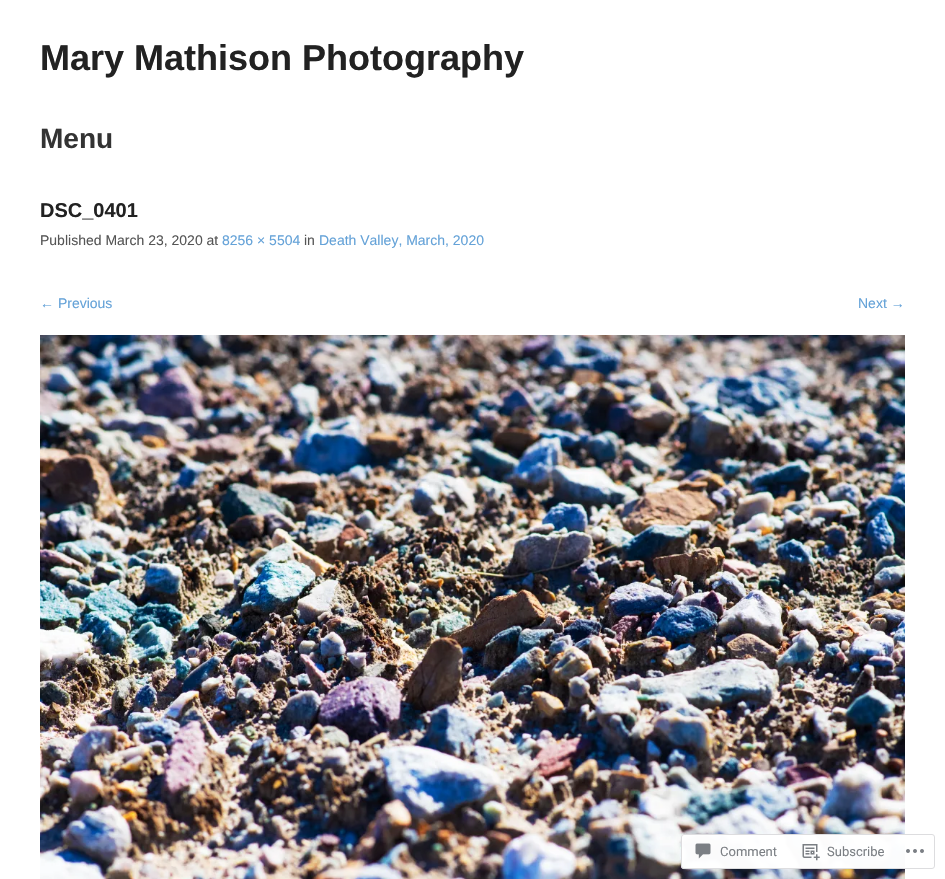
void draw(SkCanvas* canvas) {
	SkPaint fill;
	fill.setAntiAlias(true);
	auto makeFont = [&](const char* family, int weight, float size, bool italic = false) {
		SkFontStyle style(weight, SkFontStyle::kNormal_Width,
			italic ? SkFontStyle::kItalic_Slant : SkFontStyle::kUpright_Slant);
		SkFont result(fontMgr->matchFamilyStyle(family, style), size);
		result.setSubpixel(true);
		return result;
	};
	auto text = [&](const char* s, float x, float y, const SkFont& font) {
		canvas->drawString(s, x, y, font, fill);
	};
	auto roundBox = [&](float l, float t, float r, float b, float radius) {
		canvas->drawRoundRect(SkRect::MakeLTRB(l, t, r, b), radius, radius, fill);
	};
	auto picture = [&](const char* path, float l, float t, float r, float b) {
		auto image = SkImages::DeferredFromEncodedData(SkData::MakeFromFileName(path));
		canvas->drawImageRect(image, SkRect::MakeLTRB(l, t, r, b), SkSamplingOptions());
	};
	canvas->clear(0xFFFFFFFF);
	picture("image0.png", 40, 335, 905, 879);
	fill.setColor(0xFAFFFFFF);
	roundBox(681, 834, 935, 869, 3);
	fill.setStyle(SkPaint::kStroke_Style);
	fill.setStrokeWidth(1);
	fill.setColor(0xFADCDCDE);
	canvas->drawRoundRect(SkRect::MakeLTRB(681.5f, 834.5f, 934.5f, 868.5f), 2.5f, 2.5f, fill);
	picture("image1.png", 695, 843, 711, 859);
	picture("image2.png", 802, 844, 820, 861);
	picture("image3.png", 906, 849, 924, 853);
	auto font1 = makeFont("Liberation Sans", 700, 36);
	fill.setStyle(SkPaint::kFill_Style);
	fill.setColor(0xFF222222);
	text("Mary Mathison Photography", 40, 70, font1);
	auto font2 = makeFont("Liberation Sans", 700, 28);
	fill.setColor(0xFF333333);
	text("Menu", 40, 148, font2);
	auto font3 = makeFont("Liberation Sans", 700, 20);
	fill.setColor(0xFF222222);
	text("DSC_0401", 40, 217, font3);
	auto font4 = makeFont("Liberation Sans", 400, 14);
	fill.setColor(0xFF555555);
	text("Published March 23, 2020 at", 40, 245, font4);
	fill.setColor(0xFF64A2D8);
	text("8256 × 5504", 222, 245, font4);
	fill.setColor(0xFF555555);
	text("in", 304, 245, font4);
	fill.setColor(0xFF64A2D8);
	text("Death Valley, March, 2020", 319, 245, font4);
	text("← Previous", 40, 308, font4);
	text("Next →", 858, 308, font4);
	auto font5 = makeFont("Roboto", 400, 13);
	fill.setColor(0xFF7B7F84);
	text("Comment", 720, 856, font5);
	text("Subscribe", 827, 856, font5);
}
